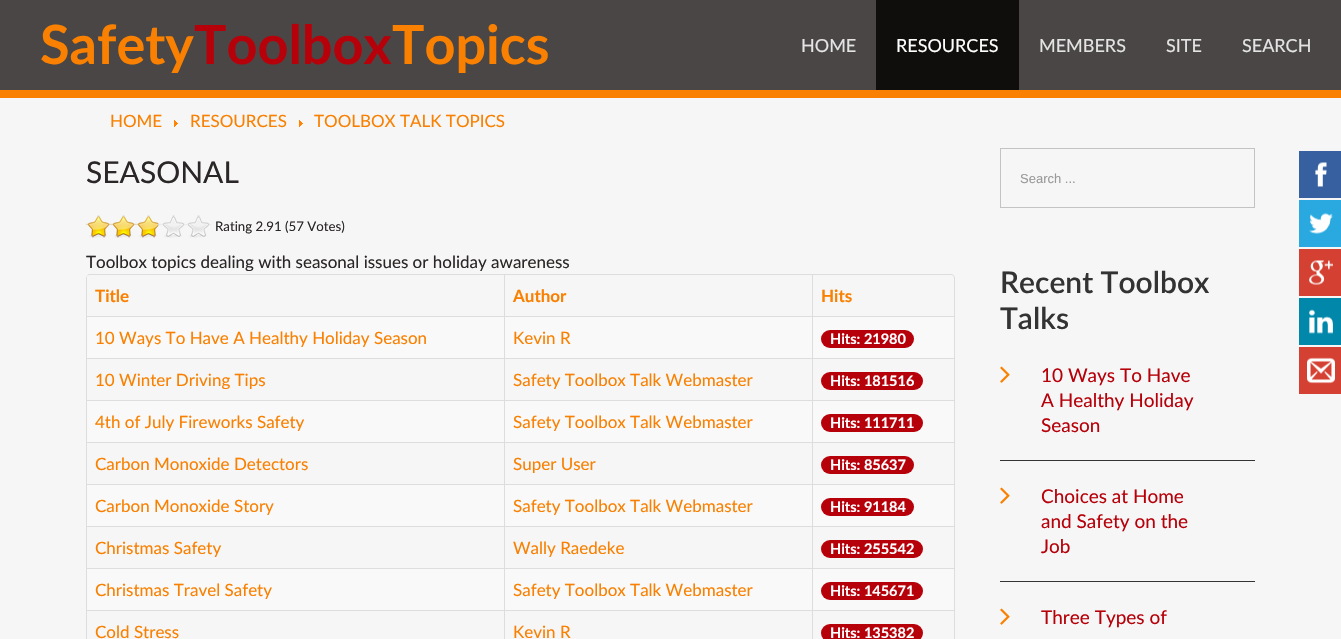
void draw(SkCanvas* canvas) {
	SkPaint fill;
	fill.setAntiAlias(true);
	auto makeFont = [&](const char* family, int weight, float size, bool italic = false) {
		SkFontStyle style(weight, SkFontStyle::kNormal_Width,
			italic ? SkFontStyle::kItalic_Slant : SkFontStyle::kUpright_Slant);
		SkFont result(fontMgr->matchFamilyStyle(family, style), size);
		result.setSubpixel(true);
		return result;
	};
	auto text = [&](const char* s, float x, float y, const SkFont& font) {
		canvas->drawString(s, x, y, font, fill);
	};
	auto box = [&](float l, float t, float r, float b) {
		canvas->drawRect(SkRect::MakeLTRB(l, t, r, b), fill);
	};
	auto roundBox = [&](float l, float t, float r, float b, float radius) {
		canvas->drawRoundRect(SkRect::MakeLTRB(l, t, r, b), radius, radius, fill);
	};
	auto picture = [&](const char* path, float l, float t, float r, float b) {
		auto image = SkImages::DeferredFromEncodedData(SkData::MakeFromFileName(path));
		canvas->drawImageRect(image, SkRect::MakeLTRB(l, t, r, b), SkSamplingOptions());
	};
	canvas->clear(0xFFF6F6F6);
	fill.setColor(0xFF494645);
	box(0, 0, 1341, 90);
	fill.setColor(0xFFF98000);
	box(0, 90, 1341, 98);
	fill.setColor(0xFF0F0E0D);
	box(876, 0, 1019, 90);
	picture("image0.png", 174, 120, 178, 127);
	picture("image0.png", 299, 120, 303, 127);
	picture("image1.png", 86, 215, 211, 238);
	picture("image2.png", 86, 215, 158, 238);
	fill.setColor(0xFFDDDDDD);
	canvas->drawPath(SkPathBuilder(SkPathFillType::kEvenOdd).moveTo(90, 274).lineTo(951, 274).cubicTo(953, 274, 955, 276, 955, 278).lineTo(955, 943).cubicTo(955, 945, 953, 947, 951, 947).lineTo(90, 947).cubicTo(88, 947, 86, 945, 86, 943).lineTo(86, 278).cubicTo(86, 276, 88, 274, 90, 274).close().moveTo(90, 275).lineTo(951, 275).cubicTo(953, 275, 954, 276, 954, 278).lineTo(954, 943).cubicTo(954, 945, 953, 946, 951, 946).lineTo(90, 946).cubicTo(88, 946, 86, 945, 86, 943).lineTo(86, 278).cubicTo(86, 276, 88, 275, 90, 275).close().detach(), fill);
	box(86, 277, 87, 316);
	box(504, 275, 505, 316);
	box(812, 275, 813, 316);
	fill.setColor(0xFFF9F9F9);
	box(87, 317, 504, 358);
	fill.setColor(0xFFDDDDDD);
	box(86, 316, 954, 317);
	box(86, 316, 87, 358);
	fill.setColor(0xFFF9F9F9);
	box(505, 317, 812, 358);
	fill.setColor(0xFFDDDDDD);
	box(504, 316, 505, 358);
	fill.setColor(0xFFF9F9F9);
	box(813, 317, 954, 358);
	fill.setColor(0xFFDDDDDD);
	box(812, 316, 813, 358);
	fill.setColor(0xFFB7010A);
	roundBox(821, 330, 914, 348, 9);
	fill.setColor(0xFFDDDDDD);
	box(86, 358, 954, 359);
	box(86, 358, 87, 400);
	box(504, 358, 505, 400);
	box(812, 358, 813, 400);
	fill.setColor(0xFFB7010A);
	roundBox(821, 372, 923, 390, 9);
	fill.setColor(0xFFF9F9F9);
	box(87, 401, 504, 442);
	fill.setColor(0xFFDDDDDD);
	box(86, 400, 954, 401);
	box(86, 400, 87, 442);
	fill.setColor(0xFFF9F9F9);
	box(505, 401, 812, 442);
	fill.setColor(0xFFDDDDDD);
	box(504, 400, 505, 442);
	fill.setColor(0xFFF9F9F9);
	box(813, 401, 954, 442);
	fill.setColor(0xFFDDDDDD);
	box(812, 400, 813, 442);
	fill.setColor(0xFFB7010A);
	roundBox(821, 414, 923, 432, 9);
	fill.setColor(0xFFDDDDDD);
	box(86, 442, 954, 443);
	box(86, 442, 87, 484);
	box(504, 442, 505, 484);
	box(812, 442, 813, 484);
	fill.setColor(0xFFB7010A);
	roundBox(821, 456, 914, 474, 9);
	fill.setColor(0xFFF9F9F9);
	box(87, 485, 504, 526);
	fill.setColor(0xFFDDDDDD);
	box(86, 484, 954, 485);
	box(86, 484, 87, 526);
	fill.setColor(0xFFF9F9F9);
	box(505, 485, 812, 526);
	fill.setColor(0xFFDDDDDD);
	box(504, 484, 505, 526);
	fill.setColor(0xFFF9F9F9);
	box(813, 485, 954, 526);
	fill.setColor(0xFFDDDDDD);
	box(812, 484, 813, 526);
	fill.setColor(0xFFB7010A);
	roundBox(821, 498, 914, 516, 9);
	fill.setColor(0xFFDDDDDD);
	box(86, 526, 954, 527);
	box(86, 526, 87, 568);
	box(504, 526, 505, 568);
	box(812, 526, 813, 568);
	fill.setColor(0xFFB7010A);
	roundBox(821, 540, 923, 558, 9);
	fill.setColor(0xFFF9F9F9);
	box(87, 569, 504, 610);
	fill.setColor(0xFFDDDDDD);
	box(86, 568, 954, 569);
	box(86, 568, 87, 610);
	fill.setColor(0xFFF9F9F9);
	box(505, 569, 812, 610);
	fill.setColor(0xFFDDDDDD);
	box(504, 568, 505, 610);
	fill.setColor(0xFFF9F9F9);
	box(813, 569, 954, 610);
	fill.setColor(0xFFDDDDDD);
	box(812, 568, 813, 610);
	fill.setColor(0xFFB7010A);
	roundBox(821, 582, 923, 600, 9);
	fill.setColor(0xFFDDDDDD);
	box(86, 610, 954, 611);
	box(86, 610, 87, 639);
	box(504, 610, 505, 639);
	box(812, 610, 813, 639);
	fill.setColor(0xFFB7010A);
	roundBox(821, 624, 923, 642, 9);
	fill.setStyle(SkPaint::kStroke_Style);
	fill.setStrokeWidth(1);
	fill.setColor(0xFFC3C3C3);
	canvas->drawRect(SkRect::MakeLTRB(1000.5f, 148.5f, 1254.5f, 207.5f), fill);
	picture("image3.png", 1000, 366, 1010, 383);
	fill.setStyle(SkPaint::kFill_Style);
	fill.setColor(0xFF343434);
	box(1000, 460, 1255, 461);
	picture("image3.png", 1000, 487, 1010, 504);
	box(1000, 581, 1255, 582);
	picture("image3.png", 1000, 608, 1010, 625);
	fill.setColor(0xFF36609F);
	box(1299, 151, 1341, 198);
	picture("image4.png", 1315, 162, 1327, 187);
	fill.setColor(0xFF2AA9E0);
	box(1299, 200, 1341, 247);
	picture("image5.png", 1309, 213, 1333, 234);
	fill.setColor(0xFFD44032);
	box(1299, 249, 1341, 296);
	picture("image6.png", 1309, 260, 1333, 285);
	fill.setColor(0xFF0087AA);
	box(1299, 298, 1341, 345);
	picture("image7.png", 1309, 309, 1333, 334);
	fill.setColor(0xFFD44032);
	box(1299, 347, 1341, 394);
	picture("image8.png", 1307, 357, 1335, 384);
	auto font1 = makeFont("Lato", 700, 54);
	fill.setColor(0xFFF98000);
	text("Safety", 40, 64, font1);
	fill.setColor(0xFFB7010A);
	text("Toolbox", 194, 64, font1);
	fill.setColor(0xFFF98000);
	text("Topics", 392, 64, font1);
	auto font2 = makeFont("Lato", 400, 18);
	fill.setColor(0xFFE4E4E4);
	text("HOME", 801, 52, font2);
	fill.setColor(0xFFFFFFFF);
	text("RESOURCES", 896, 52, font2);
	fill.setColor(0xFFE4E4E4);
	text("MEMBERS", 1039, 52, font2);
	text("SITE", 1166, 52, font2);
	text("SEARCH", 1242, 52, font2);
	auto font3 = makeFont("Lato", 400, 17);
	fill.setColor(0xFFF98000);
	text("HOME", 110, 127, font3);
	text("RESOURCES", 190, 127, font3);
	text("TOOLBOX TALK TOPICS", 314, 127, font3);
	auto font4 = makeFont("Lato", 400, 30);
	fill.setColor(0xFF2A2726);
	text("SEASONAL", 86, 183, font4);
	auto font5 = makeFont("Lato", 400, 13.25f);
	text("Rating 2.91 (57 Votes)", 215, 231, font5);
	text("Toolbox topics dealing with seasonal issues or holiday awareness", 86, 268, font3);
	auto font6 = makeFont("Lato", 700, 17);
	fill.setColor(0xFFF98000);
	text("Title", 95, 302, font6);
	text("Author", 513, 302, font6);
	text("Hits", 821, 302, font6);
	text("10 Ways To Have A Healthy Holiday Season", 95, 344, font3);
	text("Kevin R", 513, 344, font3);
	auto font7 = makeFont("Lato", 700, 14.5f);
	fill.setColor(0xFFFFFFFF);
	text("Hits: 21980", 830, 344, font7);
	fill.setColor(0xFFF98000);
	text("10 Winter Driving Tips", 95, 386, font3);
	text("Safety Toolbox Talk Webmaster", 513, 386, font3);
	fill.setColor(0xFFFFFFFF);
	text("Hits: 181516", 830, 386, font7);
	fill.setColor(0xFFF98000);
	text("4th of July Fireworks Safety", 95, 428, font3);
	text("Safety Toolbox Talk Webmaster", 513, 428, font3);
	fill.setColor(0xFFFFFFFF);
	text("Hits: 111711", 830, 428, font7);
	fill.setColor(0xFFF98000);
	text("Carbon Monoxide Detectors", 95, 470, font3);
	text("Super User", 513, 470, font3);
	fill.setColor(0xFFFFFFFF);
	text("Hits: 85637", 830, 470, font7);
	fill.setColor(0xFFF98000);
	text("Carbon Monoxide Story", 95, 512, font3);
	text("Safety Toolbox Talk Webmaster", 513, 512, font3);
	fill.setColor(0xFFFFFFFF);
	text("Hits: 91184", 830, 512, font7);
	fill.setColor(0xFFF98000);
	text("Christmas Safety", 95, 554, font3);
	text("Wally Raedeke", 513, 554, font3);
	fill.setColor(0xFFFFFFFF);
	text("Hits: 255542", 830, 554, font7);
	fill.setColor(0xFFF98000);
	text("Christmas Travel Safety", 95, 596, font3);
	text("Safety Toolbox Talk Webmaster", 513, 596, font3);
	fill.setColor(0xFFFFFFFF);
	text("Hits: 145671", 830, 596, font7);
	fill.setColor(0xFFF98000);
	text("Cold Stress", 95, 638, font3);
	text("Kevin R", 513, 638, font3);
	fill.setColor(0xFFFFFFFF);
	text("Hits: 135382", 830, 638, font7);
	auto font8 = makeFont("Liberation Sans", 400, 13);
	fill.setColor(0xFF999999);
	text("Search ...", 1020, 183, font8);
	auto font9 = makeFont("Lato", 600, 30);
	fill.setColor(0xFF333333);
	text("Recent Toolbox", 1000, 293, font9);
	text("Talks", 1000, 329, font9);
	auto font10 = makeFont("Lato", 400, 19);
	fill.setColor(0xFFB7010A);
	text("10 Ways To Have", 1041, 382, font10);
	text("A Healthy Holiday", 1041, 407, font10);
	text("Season", 1041, 432, font10);
	text("Choices at Home", 1041, 503, font10);
	text("and Safety on the", 1041, 528, font10);
	text("Job", 1041, 553, font10);
	text("Three Types of", 1041, 624, font10);
}
